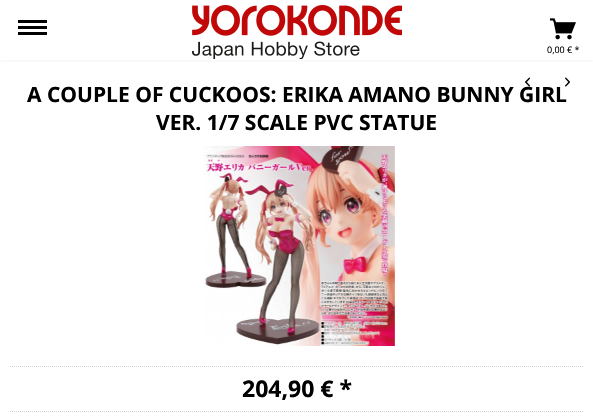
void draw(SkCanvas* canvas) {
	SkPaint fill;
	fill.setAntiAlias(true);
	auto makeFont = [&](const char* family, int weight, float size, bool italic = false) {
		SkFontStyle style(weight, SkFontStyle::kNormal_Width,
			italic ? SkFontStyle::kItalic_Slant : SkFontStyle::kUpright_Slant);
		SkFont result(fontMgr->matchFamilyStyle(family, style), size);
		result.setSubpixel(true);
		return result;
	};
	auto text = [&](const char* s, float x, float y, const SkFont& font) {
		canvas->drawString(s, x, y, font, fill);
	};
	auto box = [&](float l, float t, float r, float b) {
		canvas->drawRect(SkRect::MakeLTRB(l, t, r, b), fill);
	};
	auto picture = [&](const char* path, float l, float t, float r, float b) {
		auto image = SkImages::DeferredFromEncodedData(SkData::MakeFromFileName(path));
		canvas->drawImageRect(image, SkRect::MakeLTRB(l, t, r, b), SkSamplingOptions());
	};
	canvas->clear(0xFFFFFFFF);
	fill.setColor(0x12000000);
	fill.setMaskFilter(SkMaskFilter::MakeBlur(kNormal_SkBlurStyle, 1.5f));
	canvas->drawRect(SkRect::MakeLTRB(0, 0, 593, 60), fill);
	fill.setMaskFilter(nullptr);
	fill.setColor(0xFFFFFFFF);
	box(0, 0, 593, 60);
	picture("image0.png", 192, 5, 402, 59);
	fill.setColor(0xFF000000);
	box(18, 26, 47, 29);
	box(18, 20, 47, 23);
	box(18, 32, 47, 35);
	picture("image1.png", 550, 18, 576, 40);
	picture("image4.png", 204, 146, 395, 346);
	fill.setStyle(SkPaint::kStroke_Style);
	fill.setStrokeWidth(1);
	fill.setColor(0xFFD4D4D4);
	fill.setPathEffect(SkDashPathEffect::Make({{1, 1}}, 0));
	canvas->drawPath(SkPathBuilder().moveTo(10, 366.5f).lineTo(583, 366.5f).detach(), fill);
	fill.setPathEffect(nullptr);
	fill.setPathEffect(SkDashPathEffect::Make({{1, 1}}, 0));
	canvas->drawPath(SkPathBuilder().moveTo(10, 411.5f).lineTo(583, 411.5f).detach(), fill);
	fill.setPathEffect(nullptr);
	auto font1 = makeFont("Open Sans", 400, 9);
	fill.setStyle(SkPaint::kFill_Style);
	fill.setColor(0xFF000000);
	text("0,00 € *", 547, 53, font1);
	auto font2 = makeFont("Open Sans", 700, 21);
	text("A COUPLE OF CUCKOOS: ERIKA AMANO BUNNY GIRL", 27, 102, font2);
	picture("image3.png", 565, 77, 570, 87);
	picture("image2.png", 525, 77, 530, 87);
	text("VER. 1/7 SCALE PVC STATUE", 156, 130, font2);
	auto font3 = makeFont("Open Sans", 700, 23);
	text("204,90 € *", 242, 397, font3);
}
